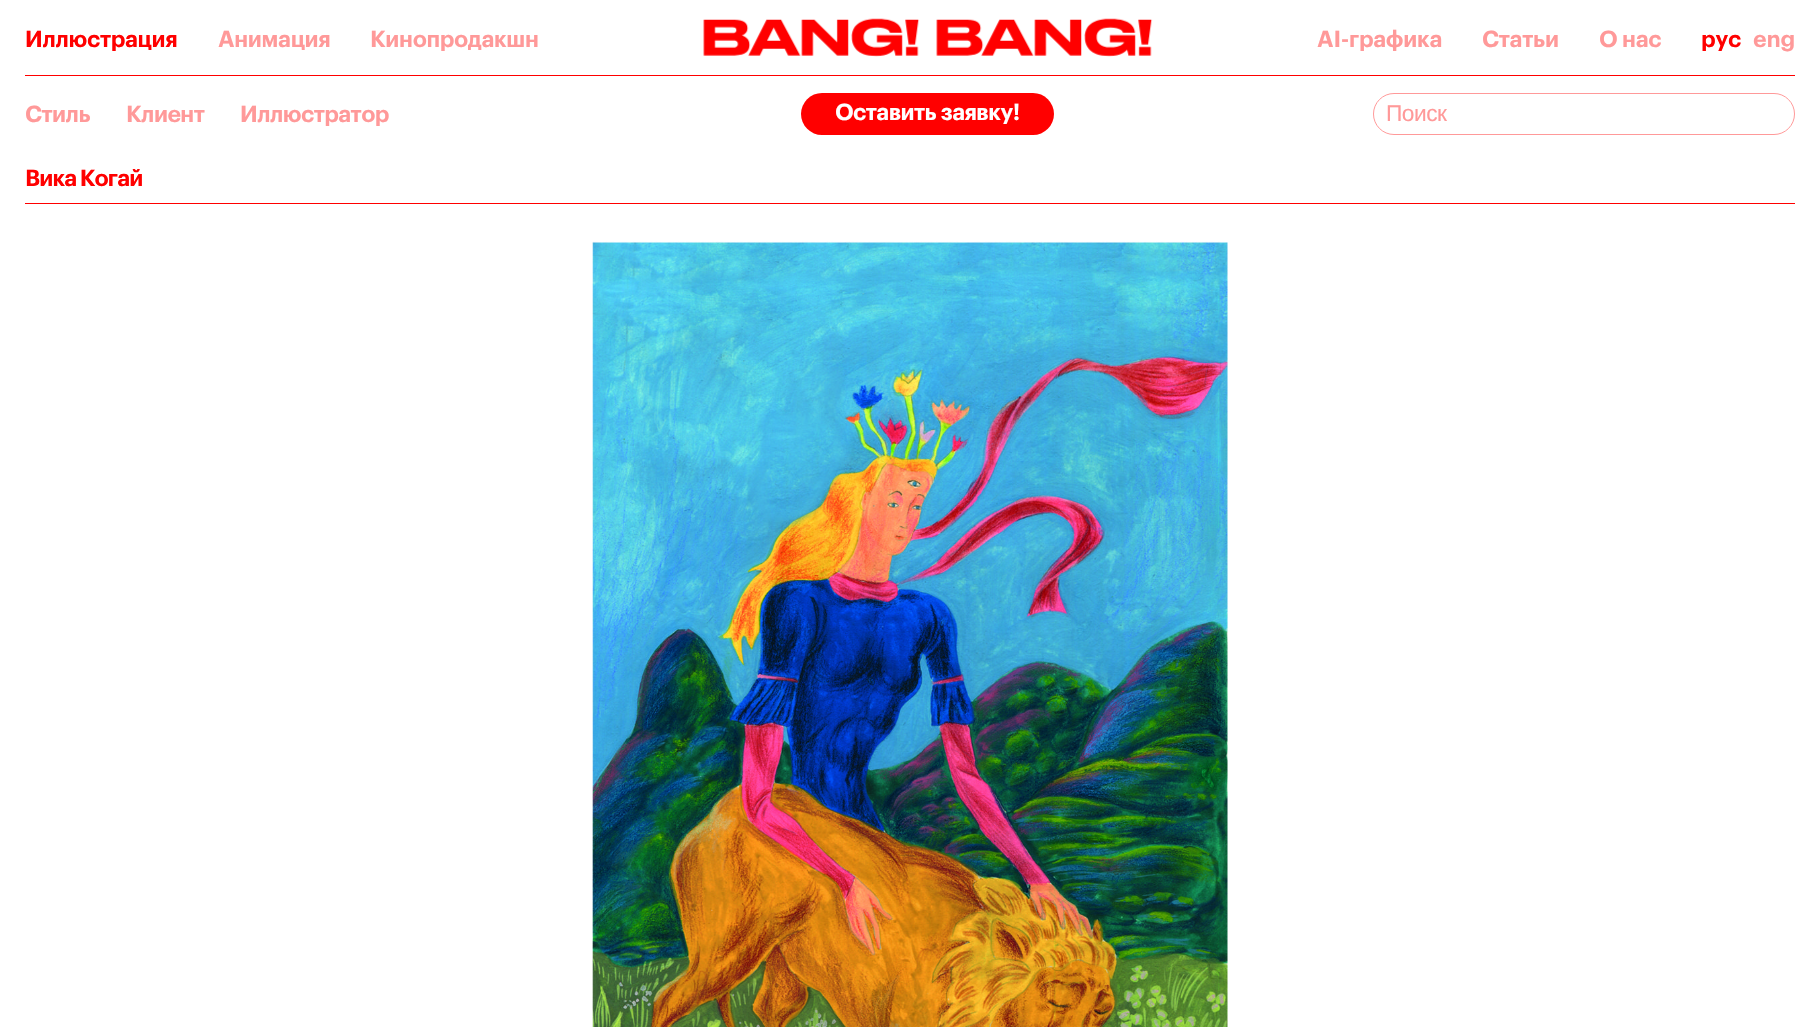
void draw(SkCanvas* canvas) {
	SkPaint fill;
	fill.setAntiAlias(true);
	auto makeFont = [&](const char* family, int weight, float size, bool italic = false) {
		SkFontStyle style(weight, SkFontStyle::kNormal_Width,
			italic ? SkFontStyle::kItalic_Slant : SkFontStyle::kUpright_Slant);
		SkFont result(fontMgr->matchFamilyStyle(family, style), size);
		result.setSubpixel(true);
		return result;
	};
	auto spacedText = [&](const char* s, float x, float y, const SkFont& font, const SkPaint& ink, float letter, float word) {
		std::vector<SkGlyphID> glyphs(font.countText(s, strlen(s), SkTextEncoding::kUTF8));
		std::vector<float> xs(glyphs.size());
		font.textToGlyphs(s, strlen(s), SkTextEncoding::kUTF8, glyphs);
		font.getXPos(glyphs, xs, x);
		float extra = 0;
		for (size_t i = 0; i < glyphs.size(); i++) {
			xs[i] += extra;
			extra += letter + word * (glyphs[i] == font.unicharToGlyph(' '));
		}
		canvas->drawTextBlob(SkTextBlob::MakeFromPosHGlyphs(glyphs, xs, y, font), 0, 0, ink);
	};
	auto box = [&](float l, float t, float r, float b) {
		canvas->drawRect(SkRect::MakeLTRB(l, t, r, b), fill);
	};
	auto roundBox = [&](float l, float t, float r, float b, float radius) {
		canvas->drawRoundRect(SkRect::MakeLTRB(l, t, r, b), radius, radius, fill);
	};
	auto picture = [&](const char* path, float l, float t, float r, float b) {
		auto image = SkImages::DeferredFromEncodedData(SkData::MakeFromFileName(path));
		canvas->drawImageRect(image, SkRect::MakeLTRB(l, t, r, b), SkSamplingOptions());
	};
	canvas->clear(0xFFFFFFFF);
	picture("image0.png", 703, 18, 1153, 57);
	fill.setColor(0xFFFF0000);
	box(25, 75, 1795, 76);
	roundBox(801, 93, 1054, 135, 21);
	fill.setStyle(SkPaint::kStroke_Style);
	fill.setStrokeWidth(1);
	fill.setColor(0xFFFF9999);
	canvas->drawRoundRect(SkRect::MakeLTRB(1373.5f, 93.5f, 1794.5f, 134.5f), 20.5f, 20.5f, fill);
	fill.setStyle(SkPaint::kFill_Style);
	fill.setColor(0xFFFF0000);
	box(25, 203, 1795, 204);
	picture("image1.png", 592, 241, 1228, 1027);
	auto font1 = makeFont("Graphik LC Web", 600, 22.75f);
	spacedText("Иллюстрация", 25, 47, font1, fill, -0.25f, 0);
	fill.setColor(0xFFFF9999);
	spacedText("Анимация", 218, 47, font1, fill, -0.25f, 0);
	spacedText("Кинопродакшн", 370, 47, font1, fill, -0.25f, 0);
	spacedText("AI-графика", 1317, 47, font1, fill, -0.25f, 0);
	spacedText("Статьи", 1482, 47, font1, fill, -0.25f, 0);
	spacedText("О нас", 1599, 47, font1, fill, -0.25f, 0);
	fill.setColor(0xFFFF0000);
	spacedText("рус", 1701, 47, font1, fill, -0.25f, 0);
	fill.setColor(0xFFFF9999);
	spacedText("eng", 1753, 47, font1, fill, -0.25f, 0);
	spacedText("Стиль", 25, 122, font1, fill, -0.5f, 0);
	spacedText("Клиент", 126, 122, font1, fill, -0.5f, 0);
	spacedText("Иллюстратор", 240, 122, font1, fill, -0.5f, 0);
	fill.setColor(0xFFFFFFFF);
	spacedText("Оставить заявку!", 835, 120, font1, fill, -0.5f, 0);
	auto font2 = makeFont("Liberation Sans", 400, 22.75f);
	fill.setColor(0xFFFF9999);
	spacedText("Поиск", 1386, 121, font2, fill, -0.5f, 0);
	fill.setColor(0xFFFF0000);
	spacedText("Вика Когай", 25, 186, font1, fill, -0.75f, -1);
}
